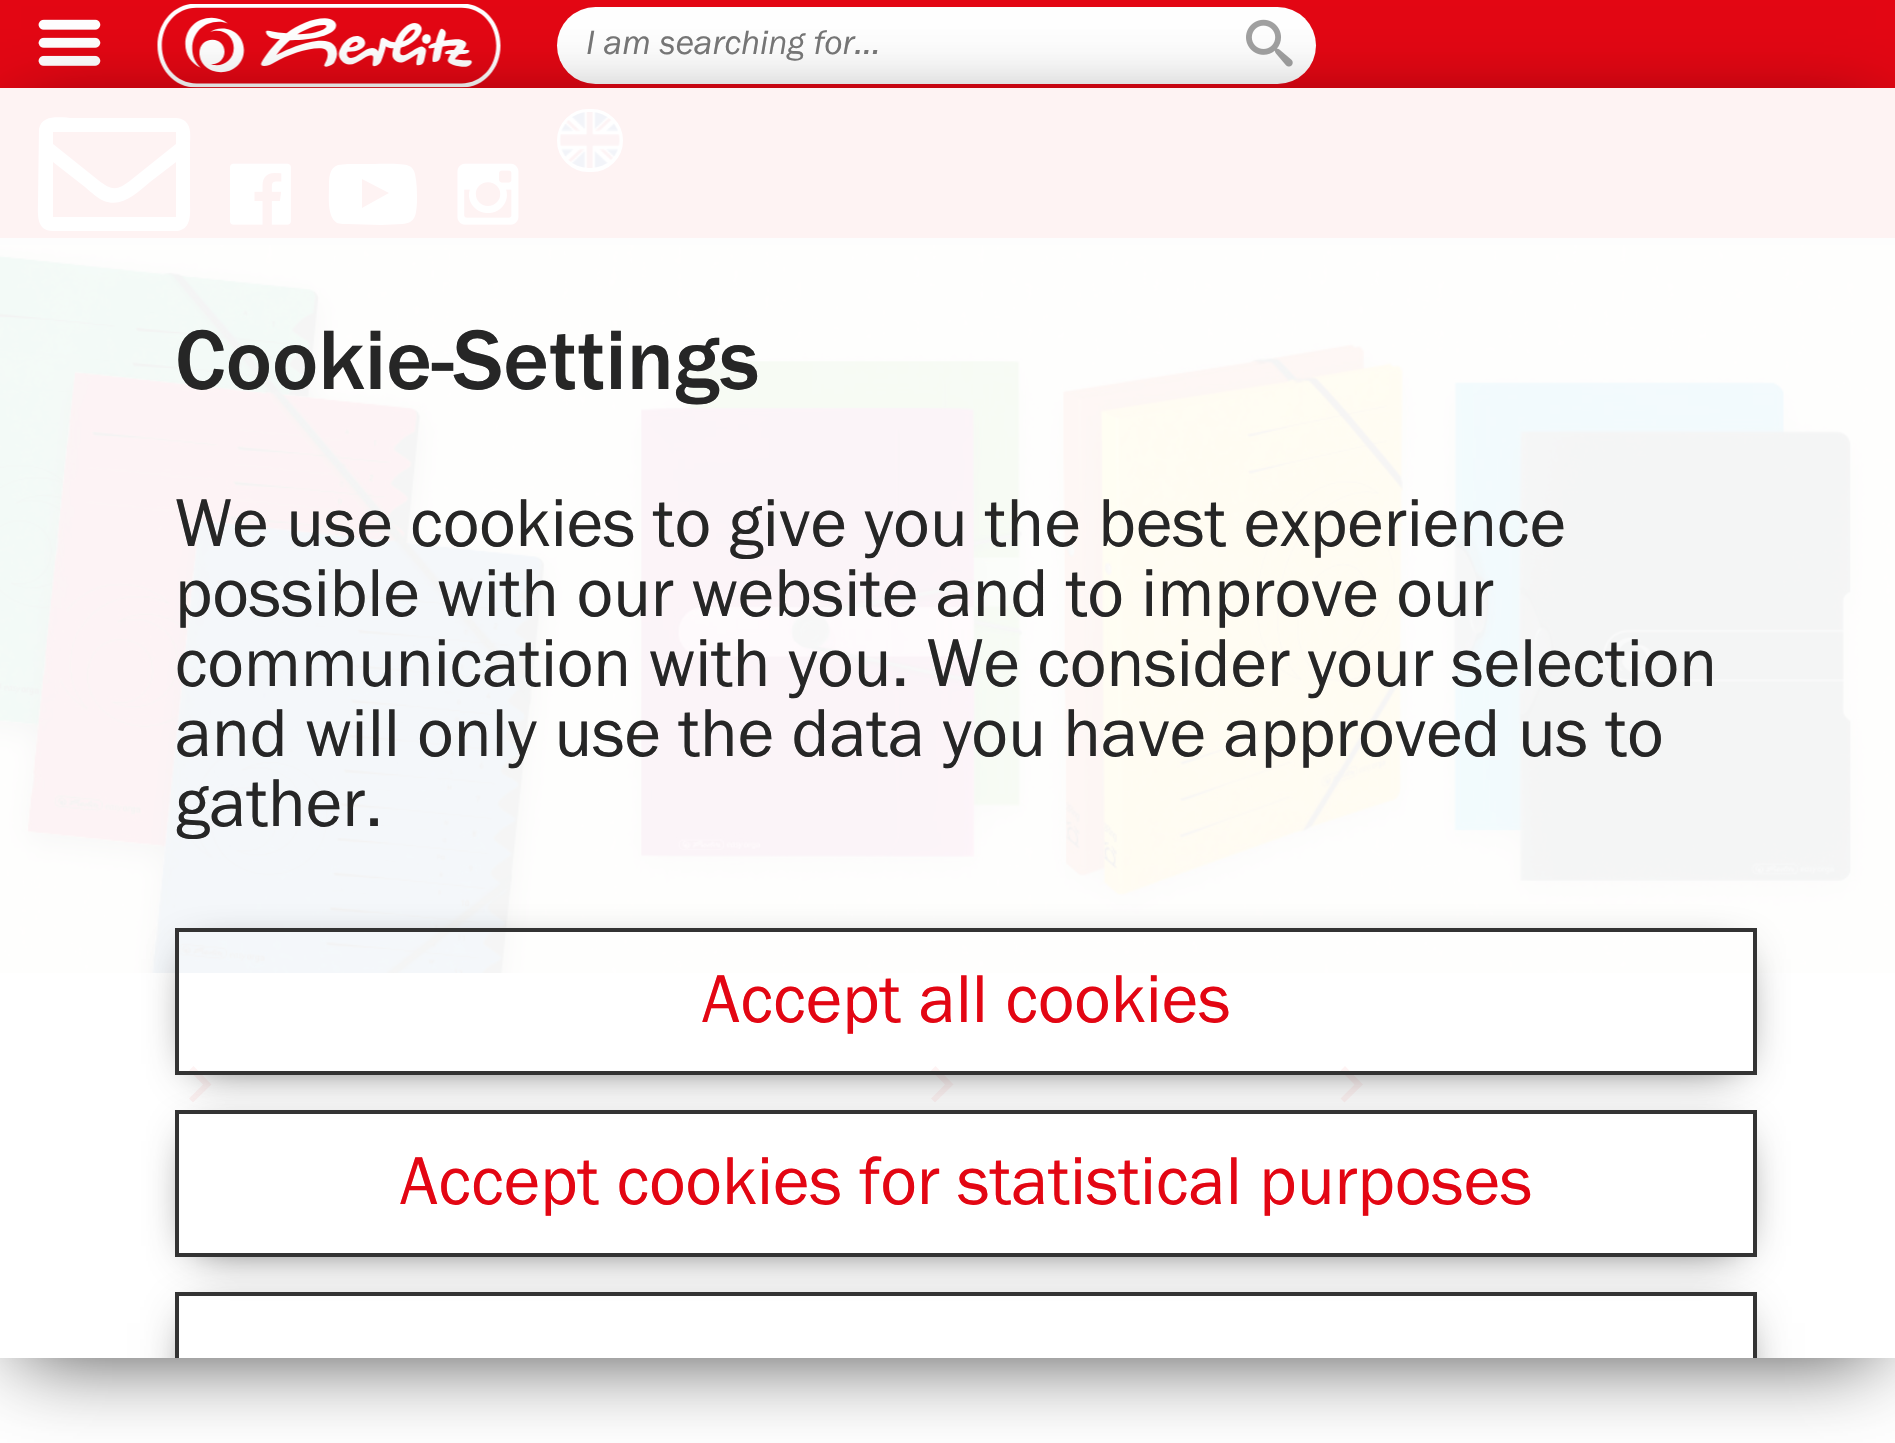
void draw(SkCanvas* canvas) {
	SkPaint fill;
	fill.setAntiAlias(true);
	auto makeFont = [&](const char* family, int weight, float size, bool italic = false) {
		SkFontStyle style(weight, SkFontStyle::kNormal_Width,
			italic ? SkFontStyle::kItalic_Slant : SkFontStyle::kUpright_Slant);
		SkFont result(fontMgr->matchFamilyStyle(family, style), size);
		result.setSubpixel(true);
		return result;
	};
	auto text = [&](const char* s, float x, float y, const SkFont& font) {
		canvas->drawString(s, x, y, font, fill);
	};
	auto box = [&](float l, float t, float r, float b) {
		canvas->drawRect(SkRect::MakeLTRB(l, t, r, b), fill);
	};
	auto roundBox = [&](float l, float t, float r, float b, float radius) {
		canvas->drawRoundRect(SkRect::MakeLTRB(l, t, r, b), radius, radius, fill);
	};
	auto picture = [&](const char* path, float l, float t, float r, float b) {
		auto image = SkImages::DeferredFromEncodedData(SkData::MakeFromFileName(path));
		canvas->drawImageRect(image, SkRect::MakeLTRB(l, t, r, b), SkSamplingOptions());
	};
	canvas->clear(0xFFFFFFFF);
	fill.setColor(0xFFE30613);
	box(0, 0, 1895, 238);
	fill.setColor(0xFFCECCCC);
	box(0, 238, 1895, 245);
	picture("image0.png", 38, 19, 101, 66);
	picture("image1.png", 157, 4, 501, 88);
	fill.setColor(0xFFFFFFFF);
	roundBox(557, 7, 1316, 84, 38.5f);
	picture("image2.png", 1246, 19, 1293, 67);
	canvas->drawPath(SkPathBuilder().moveTo(176, 118).cubicTo(179, 118, 182, 119, 185, 121).cubicTo(192, 127, 190, 137, 190, 146).lineTo(190, 203).cubicTo(190, 213, 192, 228, 178, 231).lineTo(53, 231).cubicTo(36, 231, 38, 214, 38, 203).lineTo(39, 129).cubicTo(42, 113, 63, 118, 73, 118).close().moveTo(176, 132).lineTo(53, 132).lineTo(53, 144).lineTo(98, 180).cubicTo(112, 191, 117, 191, 131, 180).lineTo(176, 144).close().moveTo(53, 217).lineTo(176, 217).lineTo(176, 162).lineTo(150, 182).cubicTo(137, 193, 122, 208, 104, 201).cubicTo(97, 198, 91, 192, 85, 187).lineTo(53, 162).close().detach(), fill);
	picture("image3.png", 230, 163, 291, 225);
	canvas->drawPath(SkPathBuilder().moveTo(415, 174).cubicTo(417, 183, 417, 193, 417, 202).cubicTo(416, 215, 416, 223, 402, 224).lineTo(381, 225).lineTo(348, 224).cubicTo(345, 224, 340, 224, 337, 223).cubicTo(334, 221, 332, 218, 331, 215).cubicTo(328, 206, 329, 196, 329, 186).cubicTo(329, 179, 329, 168, 338, 165).lineTo(348, 164).lineTo(373, 164).cubicTo(381, 164, 403, 163, 409, 166).cubicTo(412, 167, 414, 170, 415, 174).close().moveTo(362, 208).lineTo(389, 193).lineTo(362, 179).close().detach(), fill);
	picture("image4.png", 457, 163, 519, 225);
	canvas->drawRoundRect(SkRect::MakeLTRB(559, 111, 621, 170), 29.5f, 29.5f, fill);
	fill.setStyle(SkPaint::kStroke_Style);
	fill.setStrokeWidth(4);
	canvas->drawRoundRect(SkRect::MakeLTRB(559, 111, 621, 170), 29.5f, 29.5f, fill);
	picture("image5.png", 559, 112, 620, 168);
	picture("image6.png", 0, 245, 1895, 973);
	fill.setStyle(SkPaint::kFill_Style);
	fill.setColor(0xFFE30613);
	canvas->drawPath(SkPathBuilder().moveTo(193.5f, 1066).lineTo(189, 1070.5f).lineTo(203, 1084.5f).lineTo(189, 1098.5f).lineTo(193, 1102.5f).lineTo(211.5f, 1084.5f).close().detach(), fill);
	canvas->drawPath(SkPathBuilder().moveTo(935.5f, 1066).lineTo(931, 1070.5f).lineTo(945, 1084.5f).lineTo(931, 1098.5f).lineTo(935, 1102.5f).lineTo(953.5f, 1084.5f).close().detach(), fill);
	canvas->drawPath(SkPathBuilder().moveTo(1345, 1066).lineTo(1340.5f, 1070.5f).lineTo(1354.5f, 1084.5f).lineTo(1340.5f, 1098.5f).lineTo(1344.5f, 1102.5f).lineTo(1363, 1084.5f).close().detach(), fill);
	canvas->save();
	canvas->clipPath(SkPathBuilder(SkPathFillType::kEvenOdd).moveTo(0, 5).lineTo(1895, 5).lineTo(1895, 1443).lineTo(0, 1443).close().moveTo(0, 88).lineTo(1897, 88).lineTo(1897, 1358).lineTo(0, 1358).close().detach(), true);
	fill.setColor(0xBF000000);
	fill.setMaskFilter(SkMaskFilter::MakeBlur(kNormal_SkBlurStyle, 40));
	canvas->drawRect(SkRect::MakeLTRB(21, 126, 1876, 1355), fill);
	fill.setMaskFilter(nullptr);
	canvas->restore();
	fill.setColor(0xF2FFFFFF);
	box(0, 88, 1895, 1103);
	canvas->save();
	canvas->clipPath(SkPathBuilder(SkPathFillType::kEvenOdd).moveTo(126, 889).lineTo(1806, 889).lineTo(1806, 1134).lineTo(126, 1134).close().moveTo(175, 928).lineTo(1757, 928).lineTo(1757, 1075).lineTo(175, 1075).close().detach(), true);
	fill.setColor(0xBF000000);
	fill.setMaskFilter(SkMaskFilter::MakeBlur(kNormal_SkBlurStyle, 23));
	canvas->drawRect(SkRect::MakeLTRB(196, 959, 1736, 1064), fill);
	fill.setMaskFilter(nullptr);
	canvas->restore();
	fill.setStyle(SkPaint::kStroke_Style);
	fill.setColor(0xFF333333);
	canvas->drawRect(SkRect::MakeLTRB(177, 930, 1755, 1073), fill);
	canvas->save();
	canvas->clipPath(SkPathBuilder(SkPathFillType::kEvenOdd).moveTo(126, 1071).lineTo(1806, 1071).lineTo(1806, 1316).lineTo(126, 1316).close().moveTo(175, 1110).lineTo(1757, 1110).lineTo(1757, 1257).lineTo(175, 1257).close().detach(), true);
	fill.setStyle(SkPaint::kFill_Style);
	fill.setColor(0xBF000000);
	fill.setMaskFilter(SkMaskFilter::MakeBlur(kNormal_SkBlurStyle, 23));
	canvas->drawRect(SkRect::MakeLTRB(196, 1141, 1736, 1246), fill);
	fill.setMaskFilter(nullptr);
	canvas->restore();
	fill.setStyle(SkPaint::kStroke_Style);
	fill.setColor(0xFF333333);
	canvas->drawRect(SkRect::MakeLTRB(177, 1112, 1755, 1255), fill);
	canvas->save();
	canvas->clipRect(SkRect::MakeLTRB(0, 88, 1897, 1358));
	canvas->clipPath(SkPathBuilder(SkPathFillType::kEvenOdd).moveTo(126, 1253).lineTo(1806, 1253).lineTo(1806, 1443).lineTo(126, 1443).close().moveTo(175, 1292).lineTo(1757, 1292).lineTo(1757, 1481).lineTo(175, 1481).close().detach(), true);
	fill.setStyle(SkPaint::kFill_Style);
	fill.setColor(0xBF000000);
	fill.setMaskFilter(SkMaskFilter::MakeBlur(kNormal_SkBlurStyle, 23));
	canvas->drawRect(SkRect::MakeLTRB(196, 1323, 1736, 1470), fill);
	fill.setMaskFilter(nullptr);
	canvas->restore();
	canvas->save();
	canvas->clipRect(SkRect::MakeLTRB(0, 88, 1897, 1358));
	fill.setStyle(SkPaint::kStroke_Style);
	fill.setColor(0xFF333333);
	canvas->drawRect(SkRect::MakeLTRB(177, 1294, 1755, 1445), fill);
	canvas->restore();
	auto font1 = makeFont("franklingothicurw", 400, 35, true);
	fill.setStyle(SkPaint::kFill_Style);
	fill.setColor(0xFF757575);
	text("I am searching for...", 586, 54, font1);
	auto font2 = makeFont("franklingothicurw", 400, 87.5f);
	fill.setColor(0xFF262626);
	text("Cookie-Settings", 175, 389, font2);
	auto font3 = makeFont("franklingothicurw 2", 400, 70);
	text("We use cookies to give you the best experience", 175, 546, font3);
	text("possible with our website and to improve our", 175, 616, font3);
	text("communication with you. We consider your selection", 175, 686, font3);
	text("and will only use the data you have approved us to", 175, 756, font3);
	text("gather.", 175, 826, font3);
	fill.setColor(0xFFE30613);
	text("Accept all cookies", 702, 1022, font3);
	text("Accept cookies for statistical purposes", 400, 1204, font3);
}
